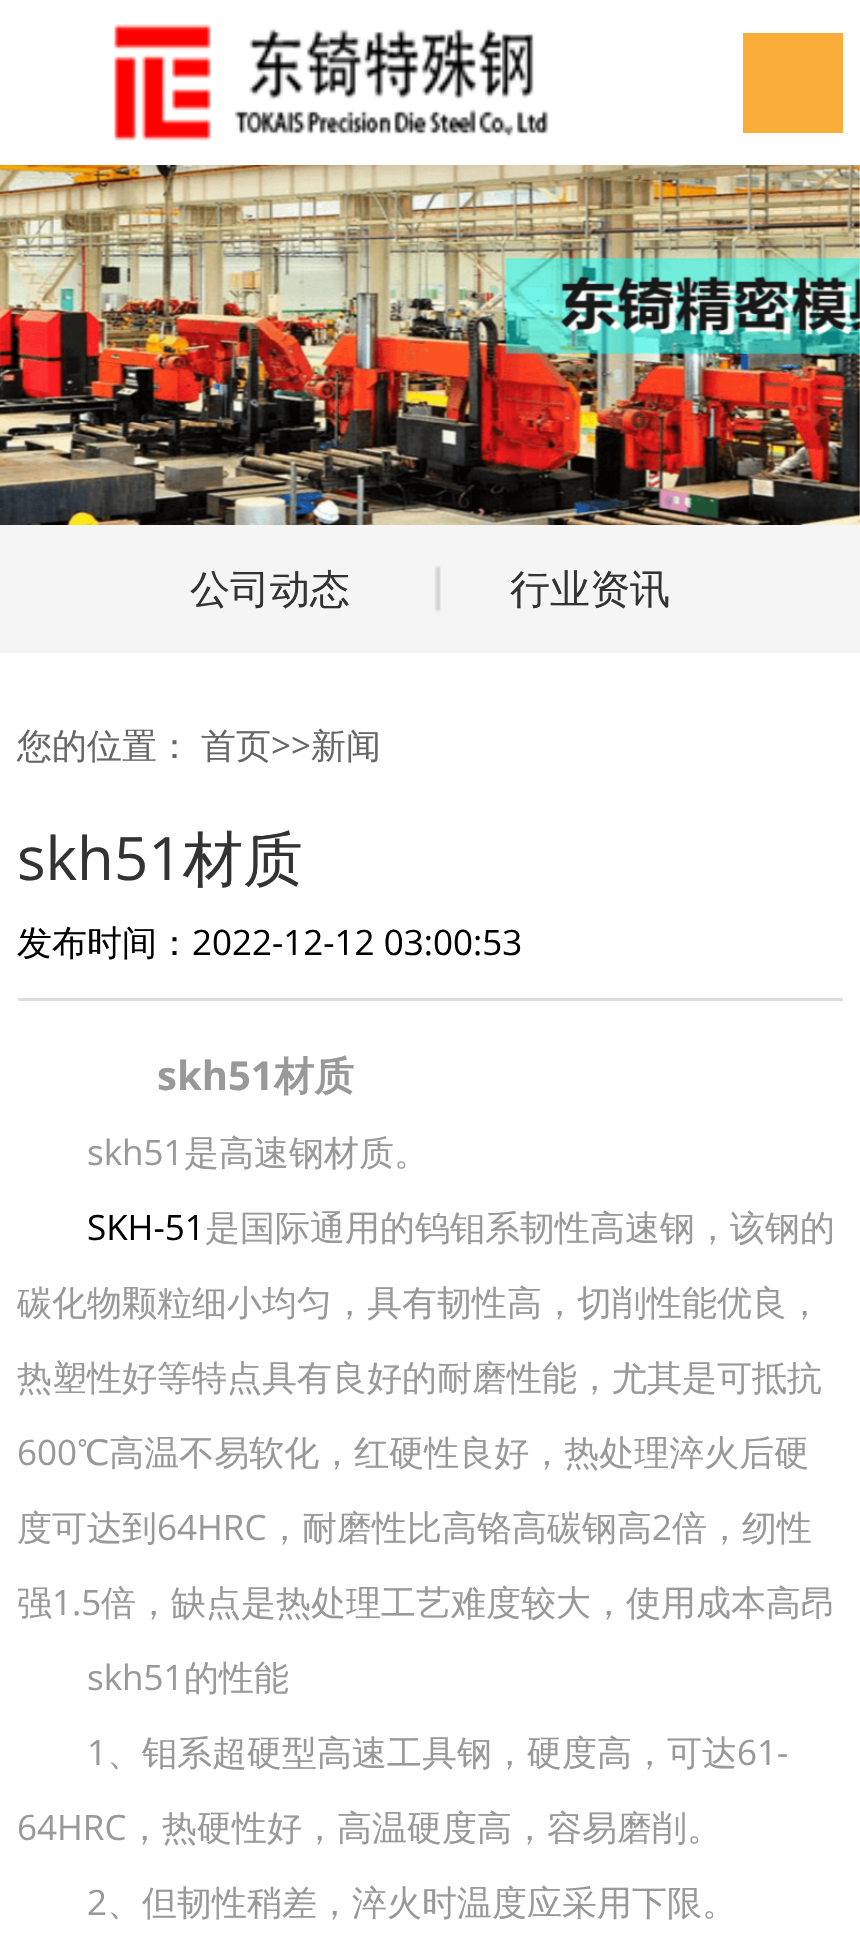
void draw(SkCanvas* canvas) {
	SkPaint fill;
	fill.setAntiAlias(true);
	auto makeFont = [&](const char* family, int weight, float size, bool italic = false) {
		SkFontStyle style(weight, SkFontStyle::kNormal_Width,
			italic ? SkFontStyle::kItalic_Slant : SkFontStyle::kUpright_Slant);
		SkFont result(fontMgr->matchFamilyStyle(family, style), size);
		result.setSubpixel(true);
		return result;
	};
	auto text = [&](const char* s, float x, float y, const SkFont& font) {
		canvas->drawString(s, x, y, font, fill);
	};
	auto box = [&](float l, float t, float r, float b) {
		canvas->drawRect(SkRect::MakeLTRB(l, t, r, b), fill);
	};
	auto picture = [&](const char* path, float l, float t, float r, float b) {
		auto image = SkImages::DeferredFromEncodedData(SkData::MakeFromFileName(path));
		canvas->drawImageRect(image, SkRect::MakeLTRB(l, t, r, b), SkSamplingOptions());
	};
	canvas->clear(0xFFFFFFFF);
	picture("image1.png", 0, 165, 860, 525);
	fill.setColor(0x1A000000);
	fill.setMaskFilter(SkMaskFilter::MakeBlur(kNormal_SkBlurStyle, 25));
	canvas->drawRect(SkRect::MakeLTRB(0, 13, 860, 178), fill);
	fill.setMaskFilter(nullptr);
	fill.setColor(0xFFFFFFFF);
	box(0, 0, 860, 165);
	picture("image0.png", 113, 24, 549, 141);
	fill.setColor(0xFFFAAD39);
	box(743, 33, 843, 133);
	fill.setColor(0xFFF5F5F5);
	box(0, 525, 860, 653);
	picture("image2.png", 434, 565, 441, 613);
	fill.setColor(0xFFDDDDDD);
	box(18, 998, 843, 1001);
	auto font1 = makeFont("WenQuanYi Zen Hei", 500, 40);
	fill.setColor(0xFF333333);
	text("公司动态", 190, 603, font1);
	text("行业资讯", 510, 603, font1);
	auto font2 = makeFont("WenQuanYi Zen Hei", 500, 35);
	fill.setColor(0xFF666666);
	text("您的位置：", 17, 758, font2);
	text("首页", 201, 758, font2);
	auto font3 = makeFont("Open Sans", 400, 35);
	text(">>", 271, 758, font3);
	text("新闻", 311, 758, font2);
	auto font4 = makeFont("Open Sans", 400, 60);
	fill.setColor(0xFF333333);
	text("skh51", 17, 880, font4);
	auto font5 = makeFont("WenQuanYi Zen Hei", 500, 60);
	text("材质", 183, 880, font5);
	fill.setColor(0xFF000000);
	text("发布时间：", 17, 955, font2);
	text("2022-12-12 03:00:53", 192, 955, font3);
	auto font6 = makeFont("Open Sans", 700, 40);
	fill.setColor(0xFF999999);
	text("skh51", 157, 1090, font6);
	auto font7 = makeFont("WenQuanYi Zen Hei", 700, 40);
	text("材质", 274, 1090, font7);
	text("skh51", 87, 1165, font3);
	text("是高速钢材质。", 184, 1165, font2);
	fill.setColor(0xFF000000);
	text("SKH-51", 87, 1240, font3);
	fill.setColor(0xFF999999);
	text("是国际通用的钨钼系韧性高速钢，该钢的", 205, 1240, font2);
	text("碳化物颗粒细小均匀，具有韧性高，切削性能优良，", 17, 1315, font2);
	text("热塑性好等特点具有良好的耐磨性能，尤其是可抵抗", 17, 1390, font2);
	text("600", 17, 1465, font3);
	text("℃高温不易软化，红硬性良好，热处理淬火后硬", 77, 1465, font2);
	text("度可达到", 17, 1540, font2);
	text("64HRC", 157, 1540, font3);
	text("，耐磨性比高铬高碳钢高", 267, 1540, font2);
	text("2", 652, 1540, font3);
	text("倍，纫性", 672, 1540, font2);
	text("强", 17, 1615, font2);
	text("1.5", 52, 1615, font3);
	text("倍，缺点是热处理工艺难度较大，使用成本高昂", 101, 1615, font2);
	text("skh51", 87, 1690, font3);
	text("的性能", 184, 1690, font2);
	text("1", 87, 1765, font3);
	text("、钼系超硬型高速工具钢，硬度高，可达", 107, 1765, font2);
	text("61-", 737, 1765, font3);
	text("64HRC", 17, 1840, font3);
	text("，热硬性好，高温硬度高，容易磨削。", 127, 1840, font2);
	text("2", 87, 1915, font3);
	text("、但韧性稍差，淬火时温度应采用下限。", 107, 1915, font2);
}
